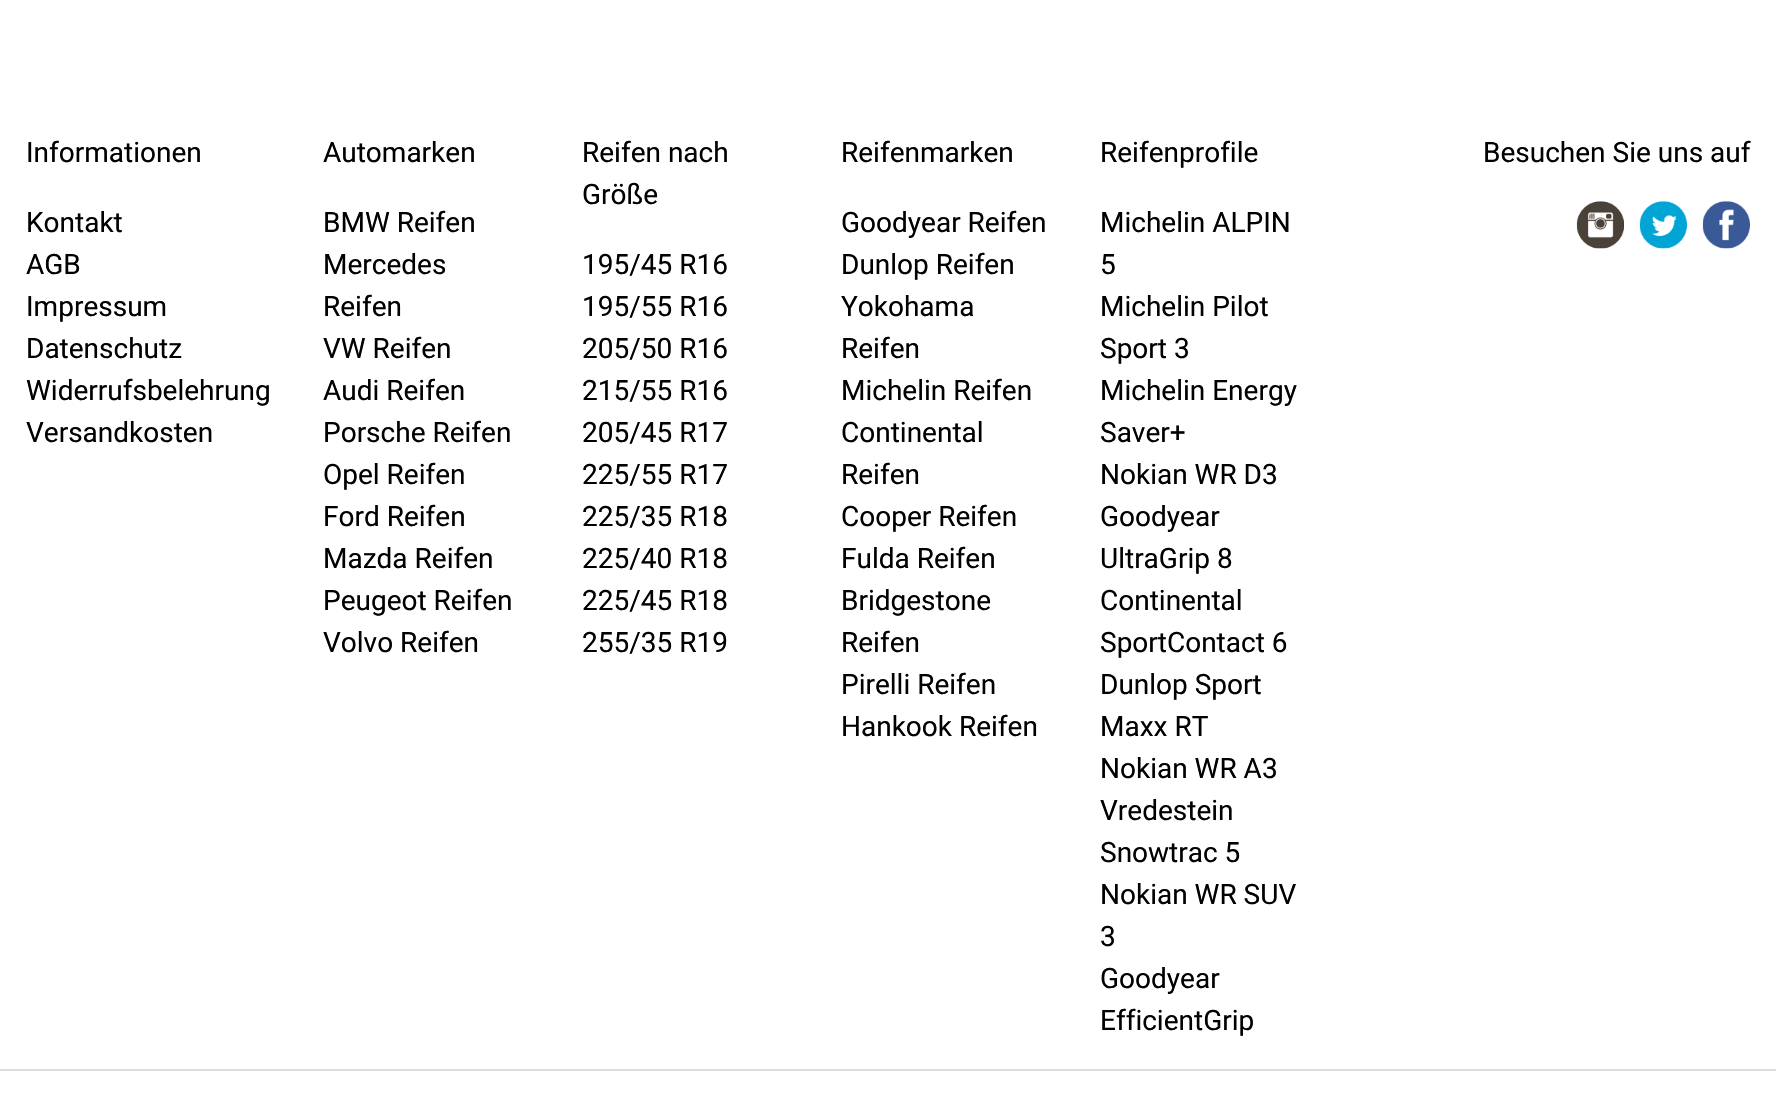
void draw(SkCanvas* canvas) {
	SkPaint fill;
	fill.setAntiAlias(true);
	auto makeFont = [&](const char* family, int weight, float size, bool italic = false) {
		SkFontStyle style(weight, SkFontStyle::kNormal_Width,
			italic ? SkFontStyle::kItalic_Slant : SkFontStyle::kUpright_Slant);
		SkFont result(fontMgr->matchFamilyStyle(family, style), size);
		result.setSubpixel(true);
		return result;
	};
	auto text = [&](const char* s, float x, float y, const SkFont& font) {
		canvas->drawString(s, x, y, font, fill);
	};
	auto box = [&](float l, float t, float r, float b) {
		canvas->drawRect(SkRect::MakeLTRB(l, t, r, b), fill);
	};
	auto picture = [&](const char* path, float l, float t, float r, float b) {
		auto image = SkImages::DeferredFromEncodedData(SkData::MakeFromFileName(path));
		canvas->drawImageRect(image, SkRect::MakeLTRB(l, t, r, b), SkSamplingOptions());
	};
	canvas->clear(0xFFFFFFFF);
	picture("image0.png", 1576, 201, 1624, 249);
	picture("image1.png", 1639, 201, 1687, 249);
	picture("image2.png", 1702, 201, 1750, 249);
	fill.setColor(0xFFDDDDDD);
	box(0, 1069, 1776, 1071);
	auto font1 = makeFont("Roboto", 400, 28);
	fill.setColor(0xFF000000);
	text("Informationen", 26, 162, font1);
	text("Kontakt", 26, 232, font1);
	text("AGB", 26, 274, font1);
	text("Impressum", 26, 316, font1);
	text("Datenschutz", 26, 358, font1);
	text("Widerrufsbelehrung", 26, 400, font1);
	text("Versandkosten", 26, 442, font1);
	text("Automarken", 323, 162, font1);
	text("BMW Reifen", 323, 232, font1);
	text("Mercedes", 323, 274, font1);
	text("Reifen", 323, 316, font1);
	text("VW Reifen", 323, 358, font1);
	text("Audi Reifen", 323, 400, font1);
	text("Porsche Reifen", 323, 442, font1);
	text("Opel Reifen", 323, 484, font1);
	text("Ford Reifen", 323, 526, font1);
	text("Mazda Reifen", 323, 568, font1);
	text("Peugeot Reifen", 323, 610, font1);
	text("Volvo Reifen", 323, 652, font1);
	text("Reifen nach", 582, 162, font1);
	text("Größe", 582, 204, font1);
	text("195/45 R16", 582, 274, font1);
	text("195/55 R16", 582, 316, font1);
	text("205/50 R16", 582, 358, font1);
	text("215/55 R16", 582, 400, font1);
	text("205/45 R17", 582, 442, font1);
	text("225/55 R17", 582, 484, font1);
	text("225/35 R18", 582, 526, font1);
	text("225/40 R18", 582, 568, font1);
	text("225/45 R18", 582, 610, font1);
	text("255/35 R19", 582, 652, font1);
	text("Reifenmarken", 841, 162, font1);
	text("Goodyear Reifen", 841, 232, font1);
	text("Dunlop Reifen", 841, 274, font1);
	text("Yokohama", 841, 316, font1);
	text("Reifen", 841, 358, font1);
	text("Michelin Reifen", 841, 400, font1);
	text("Continental", 841, 442, font1);
	text("Reifen", 841, 484, font1);
	text("Cooper Reifen", 841, 526, font1);
	text("Fulda Reifen", 841, 568, font1);
	text("Bridgestone", 841, 610, font1);
	text("Reifen", 841, 652, font1);
	text("Pirelli Reifen", 841, 694, font1);
	text("Hankook Reifen", 841, 736, font1);
	text("Reifenprofile", 1100, 162, font1);
	text("Michelin ALPIN", 1100, 232, font1);
	text("5", 1100, 274, font1);
	text("Michelin Pilot", 1100, 316, font1);
	text("Sport 3", 1100, 358, font1);
	text("Michelin Energy", 1100, 400, font1);
	text("Saver+", 1100, 442, font1);
	text("Nokian WR D3", 1100, 484, font1);
	text("Goodyear", 1100, 526, font1);
	text("UltraGrip 8", 1100, 568, font1);
	text("Continental", 1100, 610, font1);
	text("SportContact 6", 1100, 652, font1);
	text("Dunlop Sport", 1100, 694, font1);
	text("Maxx RT", 1100, 736, font1);
	text("Nokian WR A3", 1100, 778, font1);
	text("Vredestein", 1100, 820, font1);
	text("Snowtrac 5", 1100, 862, font1);
	text("Nokian WR SUV", 1100, 904, font1);
	text("3", 1100, 946, font1);
	text("Goodyear", 1100, 988, font1);
	text("EfficientGrip", 1100, 1030, font1);
	text("Besuchen Sie uns auf", 1483, 162, font1);
}
